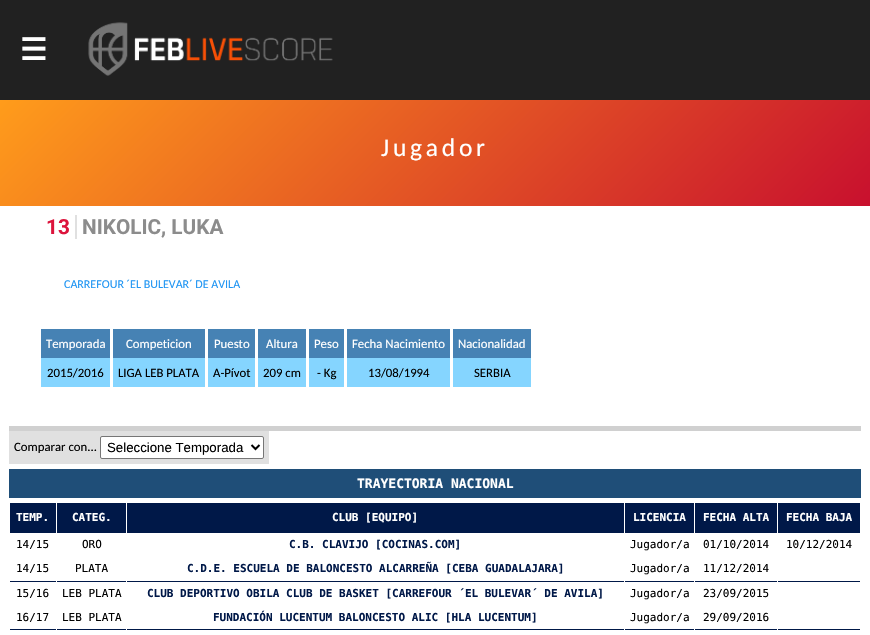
void draw(SkCanvas* canvas) {
	SkPaint fill;
	fill.setAntiAlias(true);
	auto makeFont = [&](const char* family, int weight, float size, bool italic = false) {
		SkFontStyle style(weight, SkFontStyle::kNormal_Width,
			italic ? SkFontStyle::kItalic_Slant : SkFontStyle::kUpright_Slant);
		SkFont result(fontMgr->matchFamilyStyle(family, style), size);
		result.setSubpixel(true);
		return result;
	};
	auto text = [&](const char* s, float x, float y, const SkFont& font) {
		canvas->drawString(s, x, y, font, fill);
	};
	auto spacedText = [&](const char* s, float x, float y, const SkFont& font, const SkPaint& ink, float letter, float word) {
		std::vector<SkGlyphID> glyphs(font.countText(s, strlen(s), SkTextEncoding::kUTF8));
		std::vector<float> xs(glyphs.size());
		font.textToGlyphs(s, strlen(s), SkTextEncoding::kUTF8, glyphs);
		font.getXPos(glyphs, xs, x);
		float extra = 0;
		for (size_t i = 0; i < glyphs.size(); i++) {
			xs[i] += extra;
			extra += letter + word * (glyphs[i] == font.unicharToGlyph(' '));
		}
		canvas->drawTextBlob(SkTextBlob::MakeFromPosHGlyphs(glyphs, xs, y, font), 0, 0, ink);
	};
	auto box = [&](float l, float t, float r, float b) {
		canvas->drawRect(SkRect::MakeLTRB(l, t, r, b), fill);
	};
	auto picture = [&](const char* path, float l, float t, float r, float b) {
		auto image = SkImages::DeferredFromEncodedData(SkData::MakeFromFileName(path));
		canvas->drawImageRect(image, SkRect::MakeLTRB(l, t, r, b), SkSamplingOptions());
	};
	canvas->clear(0xFF212121);
	picture("image0.png", 88, 22, 333, 76);
	fill.setColor(0xFFFFFFFF);
	box(0, 206, 870, 635);
	{
		const SkColor colors[] = {0xFFFF9C1B, 0xFFC8102E};
		const float stops[] = {0, 1};
		const SkPoint ends[] = {{191, -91}, {679, 397}};
		fill.setShader(SkGradientShader::MakeLinear(ends, colors, stops, 2, SkTileMode::kClamp));
		fill.setAlpha(255);
	}
	box(0, 100, 870, 206);
	fill.setShader(nullptr);
	fill.setColor(0xFFD0D0D0);
	box(9, 426, 861, 431);
	fill.setColor(0xFFE0E0E0);
	box(75, 215, 77, 239);
	fill.setColor(0xFF4682B4);
	box(41, 329, 110, 358);
	fill.setColor(0xFF85D5FF);
	box(41, 358, 110, 387);
	fill.setColor(0xFF4682B4);
	box(113, 329, 205, 358);
	fill.setColor(0xFF85D5FF);
	box(113, 358, 205, 387);
	fill.setColor(0xFF4682B4);
	box(208, 329, 255, 358);
	fill.setColor(0xFF85D5FF);
	box(208, 358, 255, 387);
	fill.setColor(0xFF4682B4);
	box(258, 329, 306, 358);
	fill.setColor(0xFF85D5FF);
	box(258, 358, 306, 387);
	fill.setColor(0xFF4682B4);
	box(309, 329, 344, 358);
	fill.setColor(0xFF85D5FF);
	box(309, 358, 344, 387);
	fill.setColor(0xFF4682B4);
	box(347, 329, 450, 358);
	fill.setColor(0xFF85D5FF);
	box(347, 358, 450, 387);
	fill.setColor(0xFF4682B4);
	box(453, 329, 531, 358);
	fill.setColor(0xFF85D5FF);
	box(453, 358, 531, 387);
	fill.setColor(0xFFE0E0E0);
	box(9, 431, 269, 464);
	fill.setColor(0xFFFFFFFF);
	canvas->drawRoundRect(SkRect::MakeLTRB(100.5f, 436.5f, 263.5f, 458.5f), 1.5f, 1.5f, fill);
	fill.setStyle(SkPaint::kStroke_Style);
	fill.setStrokeWidth(1);
	fill.setColor(0xFF767676);
	canvas->drawRoundRect(SkRect::MakeLTRB(100.5f, 436.5f, 263.5f, 458.5f), 1.5f, 1.5f, fill);
	fill.setStrokeWidth(2);
	fill.setColor(0xFF000000);
	canvas->drawPath(SkPathBuilder().moveTo(251.5f, 445).lineTo(255.5f, 449).lineTo(259.5f, 445).detach(), fill);
	fill.setStyle(SkPaint::kFill_Style);
	fill.setColor(0xFF1F4E78);
	box(9, 469, 861, 498);
	fill.setColor(0xFF001848);
	box(10, 503, 56, 532);
	box(57, 503, 126, 532);
	box(127, 503, 624, 532);
	box(625, 503, 694, 532);
	box(695, 503, 777, 532);
	box(778, 503, 860, 533);
	box(9, 532, 778, 533);
	fill.setColor(0xFFFFFFFF);
	box(56, 532, 57, 533);
	box(9, 532, 10, 533);
	box(126, 532, 127, 533);
	box(624, 532, 625, 533);
	box(694, 532, 695, 533);
	box(777, 532, 778, 533);
	fill.setColor(0xFF001848);
	box(9, 581, 861, 582);
	fill.setColor(0xFFFFFFFF);
	box(860, 581, 861, 582);
	box(56, 581, 57, 582);
	box(9, 581, 10, 582);
	box(126, 581, 127, 582);
	box(624, 581, 625, 582);
	box(694, 581, 695, 582);
	box(777, 581, 778, 582);
	fill.setColor(0xFF001848);
	box(9, 629, 861, 630);
	fill.setColor(0xFFFFFFFF);
	box(860, 629, 861, 635);
	box(56, 629, 57, 635);
	box(9, 629, 10, 635);
	box(126, 629, 127, 635);
	box(624, 629, 625, 635);
	box(694, 629, 695, 635);
	box(777, 629, 778, 635);
	auto font1 = makeFont("DejaVu Sans", 700, 30);
	text("☰", 20, 60, font1);
	auto font2 = makeFont("Carlito", 400, 25.5f);
	spacedText("Jugador", 381, 156, font2, fill, 3.75f, 0);
	auto font3 = makeFont("Roboto", 700, 20.75f);
	fill.setColor(0xFFDC143C);
	text("13", 46, 234, font3);
	fill.setColor(0xFF8C8C8C);
	text("NIKOLIC, LUKA", 82, 234, font3);
	auto font4 = makeFont("Carlito", 400, 12);
	fill.setColor(0xFF2196F3);
	text("CARREFOUR ´EL BULEVAR´ DE AVILA", 64, 288, font4);
	auto font5 = makeFont("Carlito", 400, 12.75f);
	fill.setColor(0xFFFFFFFF);
	text("Temporada", 46, 348, font5);
	fill.setColor(0xFF000000);
	text("2015/2016", 47, 377, font5);
	fill.setColor(0xFFFFFFFF);
	text("Competicion", 126, 348, font5);
	fill.setColor(0xFF000000);
	text("LIGA LEB PLATA", 118, 377, font5);
	fill.setColor(0xFFFFFFFF);
	text("Puesto", 214, 348, font5);
	fill.setColor(0xFF000000);
	text("A-Pívot", 213, 377, font5);
	fill.setColor(0xFFFFFFFF);
	text("Altura", 266, 348, font5);
	fill.setColor(0xFF000000);
	text("209 cm", 263, 377, font5);
	fill.setColor(0xFFFFFFFF);
	text("Peso", 314, 348, font5);
	fill.setColor(0xFF000000);
	text("- Kg", 317, 377, font5);
	fill.setColor(0xFFFFFFFF);
	text("Fecha Nacimiento", 352, 348, font5);
	fill.setColor(0xFF000000);
	text("13/08/1994", 368, 377, font5);
	fill.setColor(0xFFFFFFFF);
	text("Nacionalidad", 458, 348, font5);
	fill.setColor(0xFF000000);
	text("SERBIA", 474, 377, font5);
	text("Comparar con...", 14, 451, font5);
	auto font6 = makeFont("Liberation Sans", 400, 13.25f);
	text("Seleccione Temporada", 107, 452, font6);
	auto font7 = makeFont("DejaVu Sans Mono", 700, 13);
	fill.setColor(0xFFFFFFFF);
	text("TRAYECTORIA NACIONAL", 357, 488, font7);
	auto font8 = makeFont("DejaVu Sans Mono", 700, 11);
	text("TEMP.", 16, 521, font8);
	text("CATEG.", 72, 521, font8);
	text("CLUB [EQUIPO]", 332, 521, font8);
	text("LICENCIA", 633, 521, font8);
	text("FECHA ALTA", 703, 521, font8);
	text("FECHA BAJA", 786, 521, font8);
	auto font9 = makeFont("DejaVu Sans Mono", 400, 11);
	fill.setColor(0xFF000000);
	text("14/15", 16, 548, font9);
	text("ORO", 82, 548, font9);
	fill.setColor(0xFF001848);
	text("C.B. CLAVIJO [COCINAS.COM]", 289, 548, font8);
	fill.setColor(0xFF000000);
	text("Jugador/a", 630, 548, font9);
	text("01/10/2014", 703, 548, font9);
	text("10/12/2014", 786, 548, font9);
	text("14/15", 16, 572, font9);
	text("PLATA", 75, 572, font9);
	fill.setColor(0xFF001848);
	text("C.D.E. ESCUELA DE BALONCESTO ALCARREÑA [CEBA GUADALAJARA]", 187, 572, font8);
	fill.setColor(0xFF000000);
	text("Jugador/a", 630, 572, font9);
	text("11/12/2014", 703, 572, font9);
	text("15/16", 16, 597, font9);
	text("LEB PLATA", 62, 597, font9);
	fill.setColor(0xFF001848);
	text("CLUB DEPORTIVO OBILA CLUB DE BASKET [CARREFOUR ´EL BULEVAR´ DE AVILA]", 147, 597, font8);
	fill.setColor(0xFF000000);
	text("Jugador/a", 630, 597, font9);
	text("23/09/2015", 703, 597, font9);
	text("16/17", 16, 621, font9);
	text("LEB PLATA", 62, 621, font9);
	fill.setColor(0xFF001848);
	text("FUNDACIÓN LUCENTUM BALONCESTO ALIC [HLA LUCENTUM]", 213, 621, font8);
	fill.setColor(0xFF000000);
	text("Jugador/a", 630, 621, font9);
	text("29/09/2016", 703, 621, font9);
}
